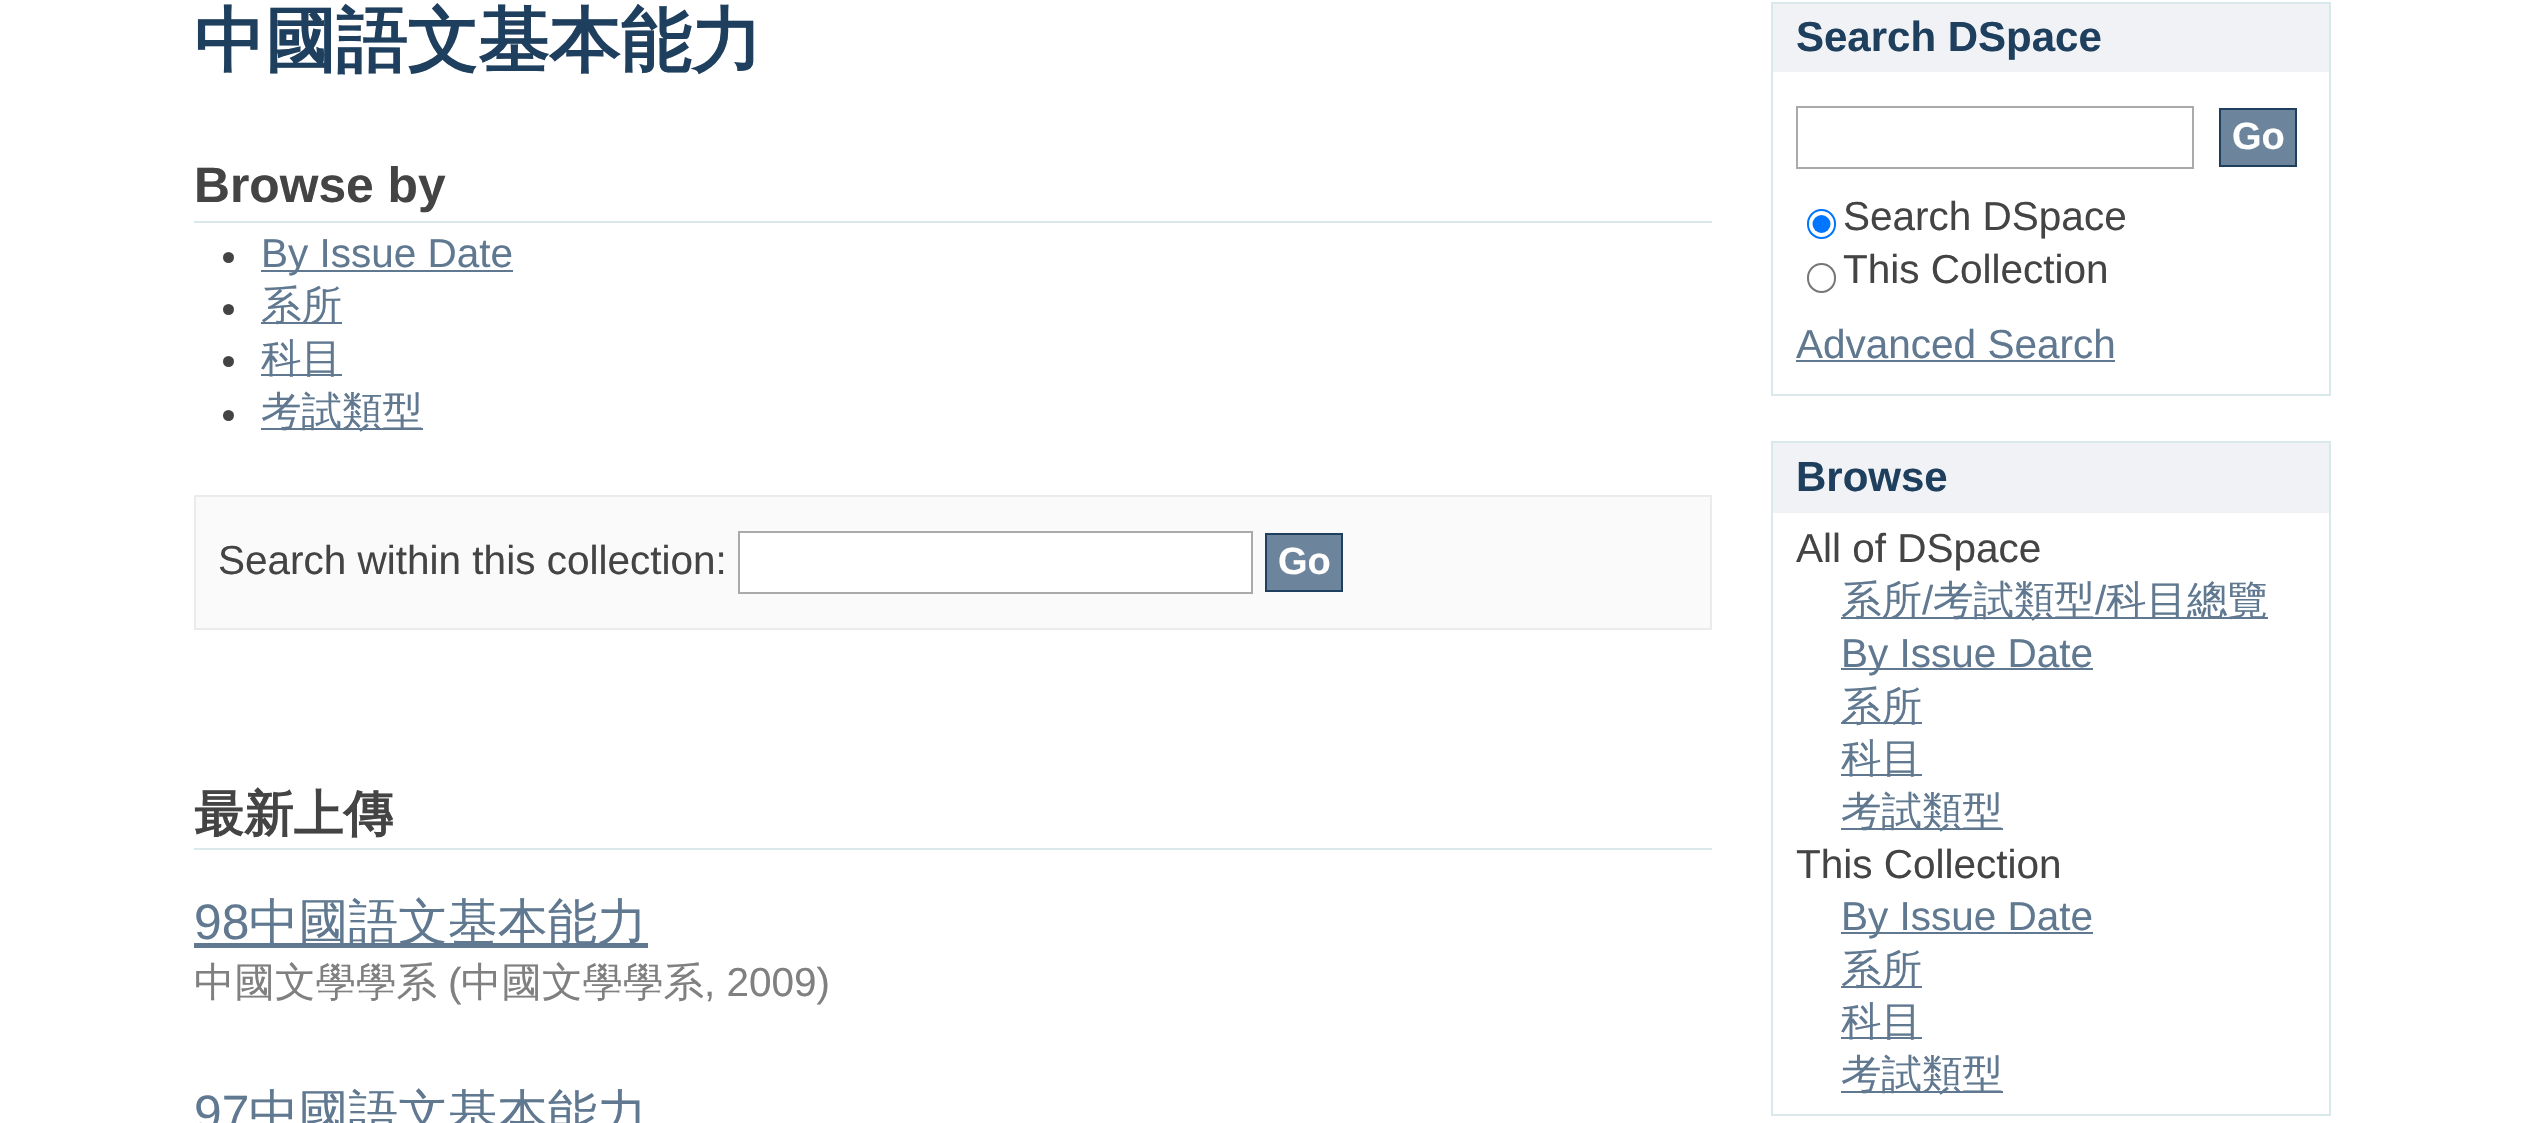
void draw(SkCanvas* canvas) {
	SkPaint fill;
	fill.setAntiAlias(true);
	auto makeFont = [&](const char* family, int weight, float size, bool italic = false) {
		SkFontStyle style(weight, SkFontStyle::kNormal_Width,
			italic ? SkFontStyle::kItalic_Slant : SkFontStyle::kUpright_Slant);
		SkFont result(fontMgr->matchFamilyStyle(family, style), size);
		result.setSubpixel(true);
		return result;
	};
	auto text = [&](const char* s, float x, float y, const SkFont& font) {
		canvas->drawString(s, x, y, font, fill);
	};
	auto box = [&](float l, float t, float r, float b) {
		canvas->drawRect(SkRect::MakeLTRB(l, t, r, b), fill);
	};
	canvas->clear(0xFFFFFFFF);
	fill.setColor(0xFFD8E8EB);
	box(194, 221, 1712, 223);
	fill.setColor(0xFF444444);
	canvas->drawCircle(228.5f, 257.5f, 5.5f, fill);
	fill.setColor(0xFF607890);
	box(261, 270, 513, 272);
	fill.setColor(0xFF444444);
	canvas->drawCircle(228.5f, 309.5f, 5.5f, fill);
	fill.setColor(0xFF607890);
	box(261, 322, 342, 324);
	fill.setColor(0xFF444444);
	canvas->drawCircle(228.5f, 361.5f, 5.5f, fill);
	fill.setColor(0xFF607890);
	box(261, 374, 342, 376);
	fill.setColor(0xFF444444);
	canvas->drawCircle(228.5f, 415.5f, 5.5f, fill);
	fill.setColor(0xFF607890);
	box(261, 428, 423, 430);
	fill.setColor(0xFFFAFAFA);
	canvas->drawRect(SkRect::MakeLTRB(195, 496, 1711, 629), fill);
	fill.setStyle(SkPaint::kStroke_Style);
	fill.setStrokeWidth(2);
	fill.setColor(0xFFEBEBEB);
	canvas->drawRect(SkRect::MakeLTRB(195, 496, 1711, 629), fill);
	fill.setStyle(SkPaint::kFill_Style);
	fill.setColor(0xFFFFFFFF);
	canvas->drawRect(SkRect::MakeLTRB(739, 532, 1252, 593), fill);
	fill.setStyle(SkPaint::kStroke_Style);
	fill.setColor(0xFFAAAAAA);
	canvas->drawRect(SkRect::MakeLTRB(739, 532, 1252, 593), fill);
	fill.setStyle(SkPaint::kFill_Style);
	fill.setColor(0xFF6D859C);
	canvas->drawRect(SkRect::MakeLTRB(1266, 534, 1342, 591), fill);
	fill.setStyle(SkPaint::kStroke_Style);
	fill.setColor(0xFF1F3F5E);
	canvas->drawRect(SkRect::MakeLTRB(1266, 534, 1342, 591), fill);
	fill.setStyle(SkPaint::kFill_Style);
	fill.setColor(0xFFD8E8EB);
	box(194, 848, 1712, 850);
	fill.setColor(0xFF607890);
	box(194, 943, 648, 948);
	fill.setColor(0xFFF0F2F5);
	box(1773, 4, 2329, 72);
	fill.setColor(0xFFD8E8EB);
	box(1771, 2, 2331, 4);
	box(2329, 2, 2331, 396);
	box(1771, 2, 1773, 72);
	box(1771, 394, 2331, 396);
	box(1771, 72, 1773, 396);
	fill.setStyle(SkPaint::kStroke_Style);
	fill.setColor(0xFFAAAAAA);
	canvas->drawRect(SkRect::MakeLTRB(1797, 107, 2193, 168), fill);
	fill.setStyle(SkPaint::kFill_Style);
	fill.setColor(0xFF6D859C);
	canvas->drawRect(SkRect::MakeLTRB(2220, 109, 2296, 166), fill);
	fill.setStyle(SkPaint::kStroke_Style);
	fill.setColor(0xFF1F3F5E);
	canvas->drawRect(SkRect::MakeLTRB(2220, 109, 2296, 166), fill);
	fill.setColor(0xFF0075FF);
	canvas->drawRoundRect(SkRect::MakeLTRB(1808, 210, 1835, 238), 13.5f, 13.5f, fill);
	fill.setStyle(SkPaint::kFill_Style);
	canvas->drawCircle(1821.5f, 224, 9, fill);
	fill.setStyle(SkPaint::kStroke_Style);
	fill.setColor(0xFF767676);
	canvas->drawRoundRect(SkRect::MakeLTRB(1808, 264, 1835, 292), 13.5f, 13.5f, fill);
	fill.setStyle(SkPaint::kFill_Style);
	fill.setColor(0xFF607890);
	box(1796, 360, 2115, 362);
	fill.setColor(0xFFF0F2F5);
	box(1773, 443, 2329, 513);
	fill.setColor(0xFFD8E8EB);
	box(1771, 441, 2331, 443);
	box(2329, 441, 2331, 1116);
	box(1771, 441, 1773, 513);
	box(1771, 1114, 2331, 1116);
	box(1771, 513, 1773, 1116);
	fill.setColor(0xFF607890);
	box(1841, 617, 2268, 619);
	box(1841, 668, 2093, 670);
	box(1841, 722, 1922, 724);
	box(1841, 774, 1922, 776);
	box(1841, 828, 2003, 830);
	box(1841, 932, 2093, 934);
	box(1841, 986, 1922, 988);
	box(1841, 1037, 1922, 1039);
	box(1841, 1091, 2003, 1093);
	auto font1 = makeFont("WenQuanYi Zen Hei", 700, 71);
	fill.setColor(0xFF1F3F5E);
	text("中國語文基本能力", 194, 65, font1);
	auto font2 = makeFont("Liberation Sans", 700, 49.75f);
	fill.setColor(0xFF444444);
	text("Browse by", 194, 202, font2);
	auto font3 = makeFont("Liberation Sans", 400, 40.5f);
	fill.setColor(0xFF607890);
	text("By Issue Date", 261, 267, font3);
	auto font4 = makeFont("WenQuanYi Zen Hei", 500, 40.5f);
	text("系所", 261, 319, font4);
	text("科目", 261, 372, font4);
	text("考試類型", 261, 425, font4);
	fill.setColor(0xFF444444);
	text("Search within this collection:", 218, 574, font3);
	auto font5 = makeFont("Liberation Sans", 700, 38);
	fill.setColor(0xFFFFFFFF);
	text("Go", 1278, 574, font5);
	auto font6 = makeFont("WenQuanYi Zen Hei", 700, 49.75f);
	fill.setColor(0xFF444444);
	text("最新上傳", 194, 831, font6);
	auto font7 = makeFont("Liberation Sans", 400, 49.75f);
	fill.setColor(0xFF607890);
	text("98", 194, 939, font7);
	auto font8 = makeFont("WenQuanYi Zen Hei", 500, 49.75f);
	text("中國語文基本能力", 249, 939, font8);
	fill.setColor(0xFF808080);
	text("中國文學學系", 194, 996, font4);
	text("(", 448, 996, font3);
	text("中國文學學系", 461, 996, font4);
	text(", 2009)", 704, 996, font3);
	fill.setColor(0xFF607890);
	text("97", 194, 1130, font7);
	text("中國語文基本能力", 249, 1130, font8);
	auto font9 = makeFont("Liberation Sans", 700, 42);
	fill.setColor(0xFF1F3F5E);
	text("Search DSpace", 1796, 51, font9);
	fill.setColor(0xFFFFFFFF);
	text("Go", 2232, 149, font5);
	fill.setColor(0xFF444444);
	text("Search DSpace", 1843, 230, font3);
	text("This Collection", 1843, 283, font3);
	fill.setColor(0xFF607890);
	text("Advanced Search", 1796, 358, font3);
	fill.setColor(0xFF1F3F5E);
	text("Browse", 1796, 491, font9);
	fill.setColor(0xFF444444);
	text("All of DSpace", 1796, 562, font3);
	fill.setColor(0xFF607890);
	text("系所", 1841, 614, font4);
	text("/", 1922, 614, font3);
	text("考試類型", 1933, 614, font4);
	text("/", 2095, 614, font3);
	text("科目總覽", 2106, 614, font4);
	text("By Issue Date", 1841, 667, font3);
	text("系所", 1841, 720, font4);
	text("科目", 1841, 772, font4);
	text("考試類型", 1841, 825, font4);
	fill.setColor(0xFF444444);
	text("This Collection", 1796, 878, font3);
	fill.setColor(0xFF607890);
	text("By Issue Date", 1841, 930, font3);
	text("系所", 1841, 983, font4);
	text("科目", 1841, 1035, font4);
	text("考試類型", 1841, 1088, font4);
}
